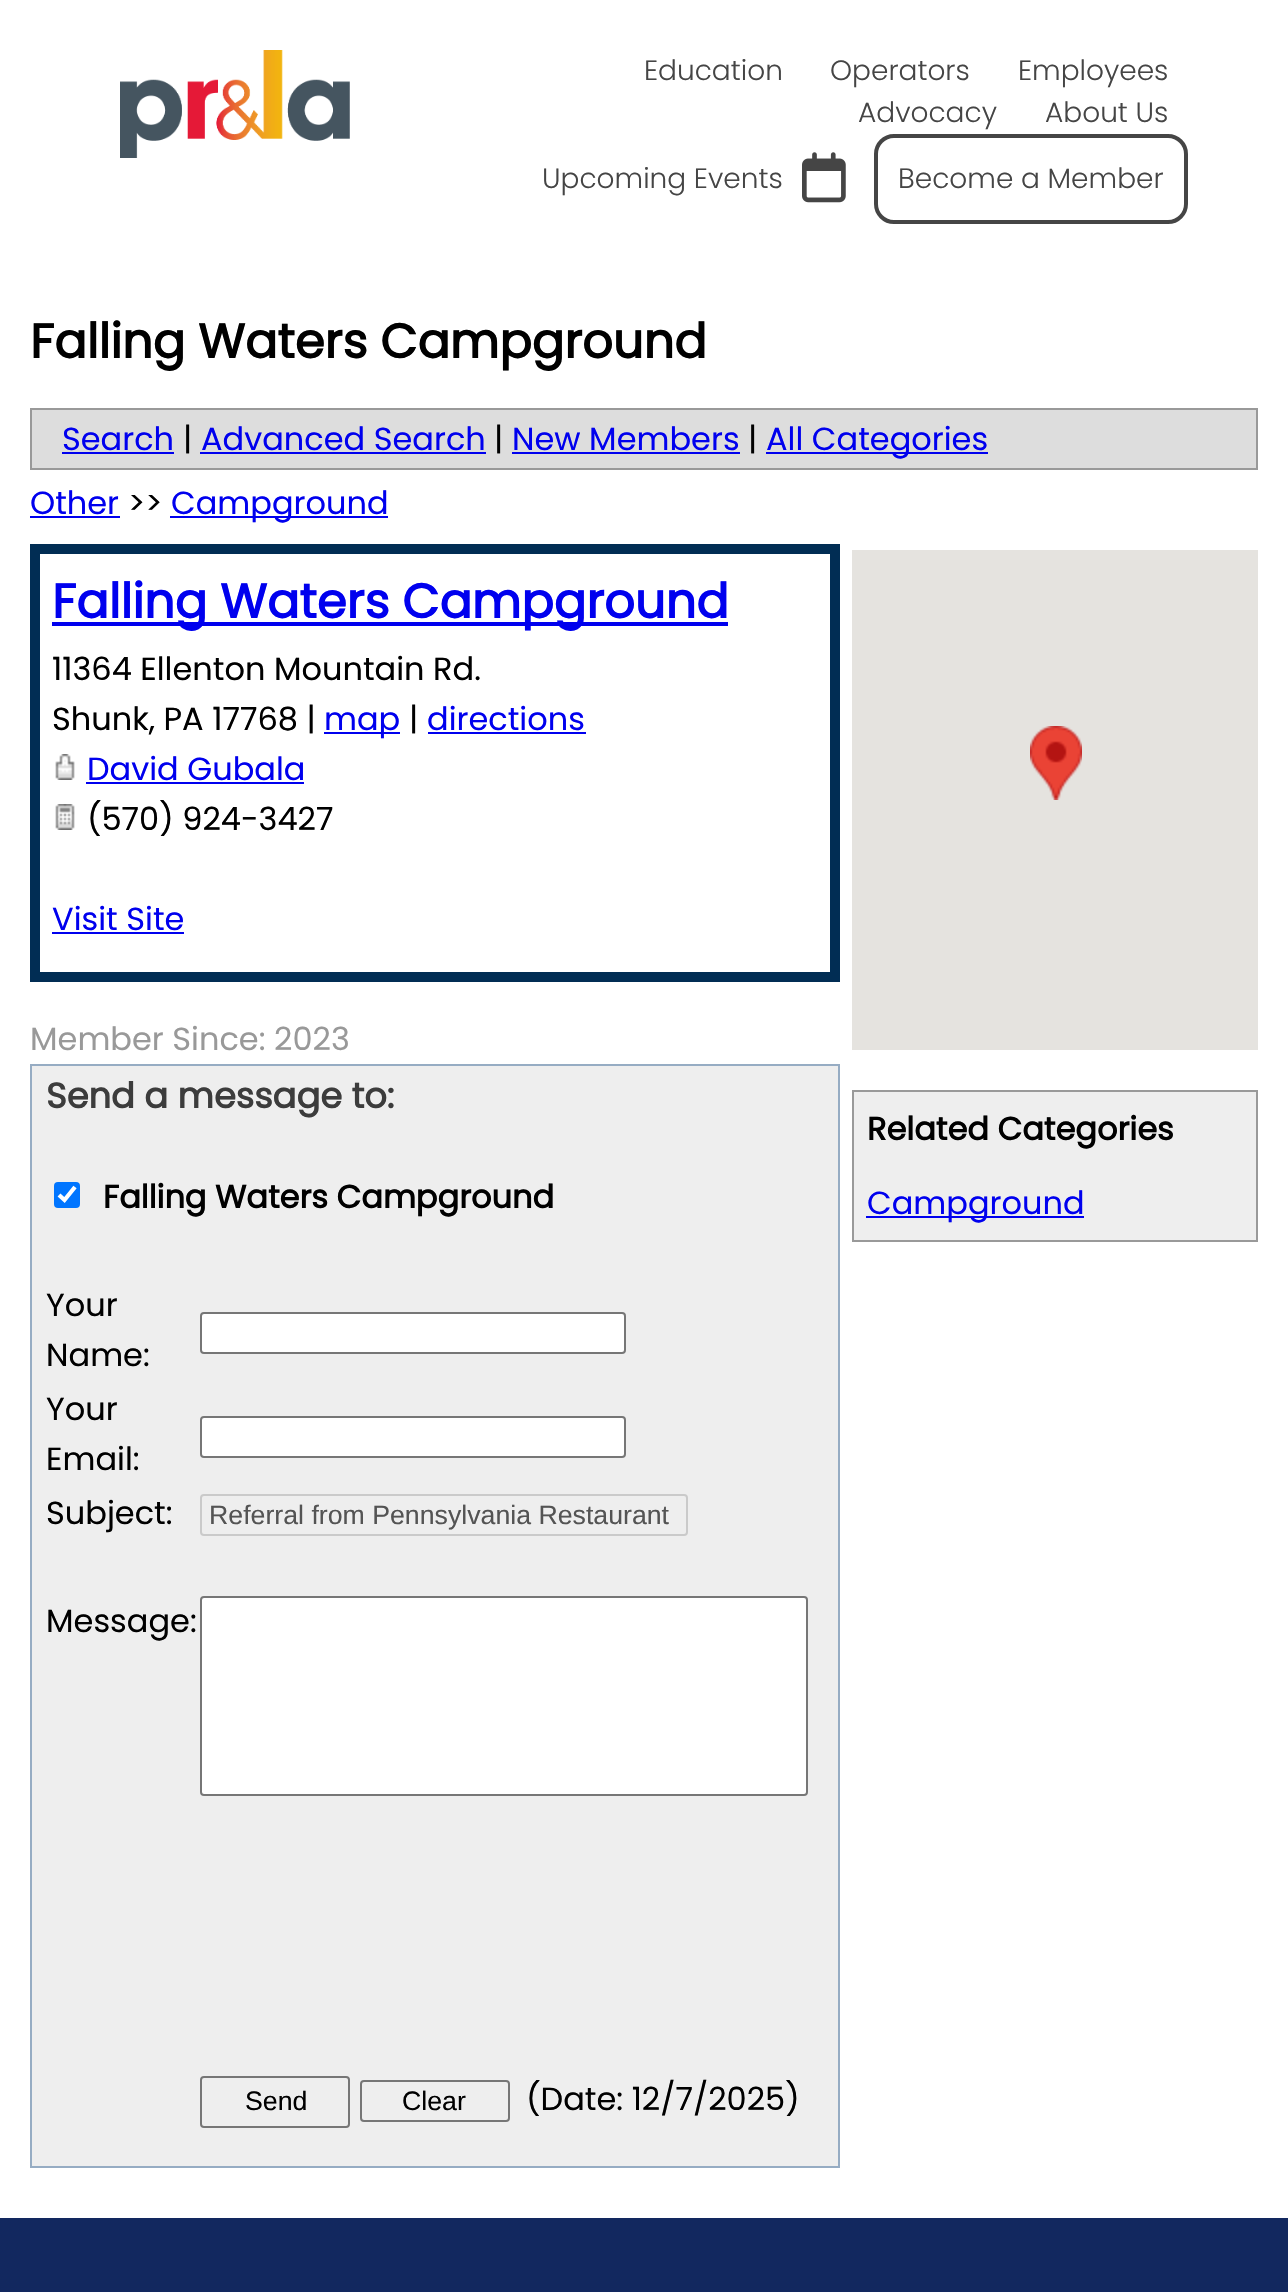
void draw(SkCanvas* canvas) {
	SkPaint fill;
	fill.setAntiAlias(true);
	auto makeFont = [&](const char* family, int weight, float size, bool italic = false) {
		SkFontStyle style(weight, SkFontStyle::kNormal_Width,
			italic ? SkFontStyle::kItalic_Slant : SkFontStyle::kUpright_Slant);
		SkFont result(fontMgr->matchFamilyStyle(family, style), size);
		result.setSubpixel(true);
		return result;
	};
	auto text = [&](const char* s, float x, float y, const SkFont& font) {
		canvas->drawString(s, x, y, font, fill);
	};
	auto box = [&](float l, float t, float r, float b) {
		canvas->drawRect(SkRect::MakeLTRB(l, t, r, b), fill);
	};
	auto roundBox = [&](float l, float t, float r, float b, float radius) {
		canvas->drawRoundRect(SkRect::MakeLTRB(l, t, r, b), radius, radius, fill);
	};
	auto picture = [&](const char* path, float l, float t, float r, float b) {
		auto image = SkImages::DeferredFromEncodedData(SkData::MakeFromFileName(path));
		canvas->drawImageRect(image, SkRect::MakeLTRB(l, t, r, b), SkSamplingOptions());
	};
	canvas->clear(0xFFFFFFFF);
	picture("image0.png", 120, 50, 350, 158);
	picture("image1.png", 802, 152, 846, 203);
	fill.setStyle(SkPaint::kStroke_Style);
	fill.setStrokeWidth(4);
	fill.setColor(0xFF454545);
	canvas->drawRoundRect(SkRect::MakeLTRB(876, 136, 1186, 222), 18, 18, fill);
	fill.setStyle(SkPaint::kFill_Style);
	fill.setColor(0xFFDDDDDD);
	canvas->drawRect(SkRect::MakeLTRB(31, 409, 1257, 469), fill);
	fill.setStyle(SkPaint::kStroke_Style);
	fill.setStrokeWidth(2);
	fill.setColor(0xFF999999);
	canvas->drawRect(SkRect::MakeLTRB(31, 409, 1257, 469), fill);
	fill.setStyle(SkPaint::kFill_Style);
	fill.setColor(0xFF0000EE);
	box(62, 452, 174, 454);
	box(200, 452, 486, 454);
	box(512, 452, 740, 454);
	box(766, 452, 988, 454);
	box(30, 516, 120, 518);
	box(170, 516, 388, 518);
	fill.setColor(0xFF012D54);
	box(30, 544, 840, 982);
	fill.setColor(0xFFFFFFFF);
	box(40, 554, 830, 972);
	fill.setColor(0xFF0000EE);
	box(52, 622, 728, 626);
	box(324, 732, 400, 734);
	box(428, 732, 586, 734);
	picture("image2.png", 55, 754, 75, 780);
	box(86, 782, 304, 784);
	picture("image3.png", 55, 804, 75, 830);
	box(52, 932, 184, 934);
	fill.setColor(0xFFEEEEEE);
	canvas->drawRect(SkRect::MakeLTRB(31, 1065, 839, 2167), fill);
	fill.setStyle(SkPaint::kStroke_Style);
	fill.setColor(0xFF96ACC3);
	canvas->drawRect(SkRect::MakeLTRB(31, 1065, 839, 2167), fill);
	fill.setStyle(SkPaint::kFill_Style);
	fill.setColor(0xFF0075FF);
	roundBox(54, 1182, 80, 1208, 4);
	fill.setStyle(SkPaint::kStroke_Style);
	fill.setStrokeWidth(4.2f);
	fill.setColor(0xFFFFFFFF);
	canvas->drawPath(SkPathBuilder().moveTo(59, 1195).lineTo(64.5f, 1200).lineTo(75, 1187).detach(), fill);
	fill.setStyle(SkPaint::kFill_Style);
	canvas->drawRoundRect(SkRect::MakeLTRB(201, 1313, 625, 1353), 3, 3, fill);
	fill.setStyle(SkPaint::kStroke_Style);
	fill.setStrokeWidth(2);
	fill.setColor(0xFF767676);
	canvas->drawRoundRect(SkRect::MakeLTRB(201, 1313, 625, 1353), 3, 3, fill);
	fill.setStyle(SkPaint::kFill_Style);
	fill.setColor(0xFFFFFFFF);
	canvas->drawRoundRect(SkRect::MakeLTRB(201, 1417, 625, 1457), 3, 3, fill);
	fill.setStyle(SkPaint::kStroke_Style);
	fill.setColor(0xFF767676);
	canvas->drawRoundRect(SkRect::MakeLTRB(201, 1417, 625, 1457), 3, 3, fill);
	fill.setColor(0xFFCACACA);
	canvas->drawRoundRect(SkRect::MakeLTRB(201, 1495, 687, 1535), 3, 3, fill);
	fill.setStyle(SkPaint::kFill_Style);
	fill.setColor(0xFFFFFFFF);
	canvas->drawRoundRect(SkRect::MakeLTRB(201, 1597, 807, 1795), 3, 3, fill);
	fill.setStyle(SkPaint::kStroke_Style);
	fill.setColor(0xFF767676);
	canvas->drawRoundRect(SkRect::MakeLTRB(201, 1597, 807, 1795), 3, 3, fill);
	canvas->drawRoundRect(SkRect::MakeLTRB(201, 2077, 349, 2127), 3, 3, fill);
	canvas->drawRoundRect(SkRect::MakeLTRB(361, 2081, 509, 2121), 3, 3, fill);
	fill.setStyle(SkPaint::kFill_Style);
	fill.setColor(0xFFE5E3DF);
	box(852, 550, 1258, 1050);
	picture("image4.png", 1030, 726, 1082, 800);
	fill.setColor(0xFFEEEEEE);
	canvas->drawRect(SkRect::MakeLTRB(853, 1091, 1257, 1241), fill);
	fill.setStyle(SkPaint::kStroke_Style);
	fill.setColor(0xFF999999);
	canvas->drawRect(SkRect::MakeLTRB(853, 1091, 1257, 1241), fill);
	fill.setStyle(SkPaint::kFill_Style);
	fill.setColor(0xFF0000EE);
	box(866, 1216, 1084, 1218);
	fill.setColor(0xFF12285F);
	box(0, 2218, 1288, 2292);
	auto font1 = makeFont("Poppins", 300, 28);
	fill.setColor(0xFF454545);
	text("Education", 644, 80, font1);
	text("Operators", 830, 80, font1);
	text("Employees", 1018, 80, font1);
	text("Advocacy", 858, 122, font1);
	text("About Us", 1045, 122, font1);
	text("Upcoming Events", 542, 188, font1);
	text("Become a Member", 898, 188, font1);
	auto font2 = makeFont("Poppins", 700, 48);
	fill.setColor(0xFF000000);
	text("Falling Waters Campground", 30, 358, font2);
	auto font3 = makeFont("Poppins", 400, 32);
	fill.setColor(0xFF0000EE);
	text("Search", 62, 450, font3);
	fill.setColor(0xFF000000);
	text("|", 183, 450, font3);
	fill.setColor(0xFF0000EE);
	text("Advanced Search", 201, 450, font3);
	fill.setColor(0xFF000000);
	text("|", 494, 450, font3);
	fill.setColor(0xFF0000EE);
	text("New Members", 512, 450, font3);
	fill.setColor(0xFF000000);
	text("|", 748, 450, font3);
	fill.setColor(0xFF0000EE);
	text("All Categories", 766, 450, font3);
	text("Other", 30, 514, font3);
	fill.setColor(0xFF000000);
	text(">>", 128, 514, font3);
	fill.setColor(0xFF0000EE);
	text("Campground", 171, 514, font3);
	text("Falling Waters Campground", 52, 618, font2);
	fill.setColor(0xFF000000);
	text("11364 Ellenton Mountain Rd.", 52, 680, font3);
	text("Shunk, PA 17768 |", 52, 730, font3);
	fill.setColor(0xFF0000EE);
	text("map", 324, 730, font3);
	fill.setColor(0xFF000000);
	text("|", 409, 730, font3);
	fill.setColor(0xFF0000EE);
	text("directions", 427, 730, font3);
	text("David Gubala", 87, 780, font3);
	fill.setColor(0xFF000000);
	text("(570) 924-3427", 87, 830, font3);
	fill.setColor(0xFF0000EE);
	text("Visit Site", 52, 930, font3);
	fill.setColor(0xFF999999);
	text("Member Since: 2023", 30, 1050, font3);
	auto font4 = makeFont("Poppins", 700, 35.25f);
	fill.setColor(0xFF3C3C3C);
	text("Send a message to:", 46, 1108, font4);
	auto font5 = makeFont("Poppins", 700, 32);
	fill.setColor(0xFF000000);
	text("Falling Waters Campground", 103, 1208, font5);
	text("Your", 46, 1316, font3);
	text("Name:", 46, 1366, font3);
	text("Your", 46, 1420, font3);
	text("Email:", 46, 1470, font3);
	text("Subject:", 46, 1524, font3);
	auto font6 = makeFont("Liberation Sans", 400, 26.7f);
	fill.setColor(0xFF545454);
	text("Referral from Pennsylvania Restaurant", 209, 1524, font6);
	fill.setColor(0xFF000000);
	text("Message:", 46, 1632, font3);
	text("Send", 245, 2110, font6);
	text("Clear", 402, 2110, font6);
	text("(Date: 12/7/2025)", 526, 2110, font3);
	text("Related Categories", 867, 1140, font5);
	fill.setColor(0xFF0000EE);
	text("Campground", 867, 1214, font3);
}
